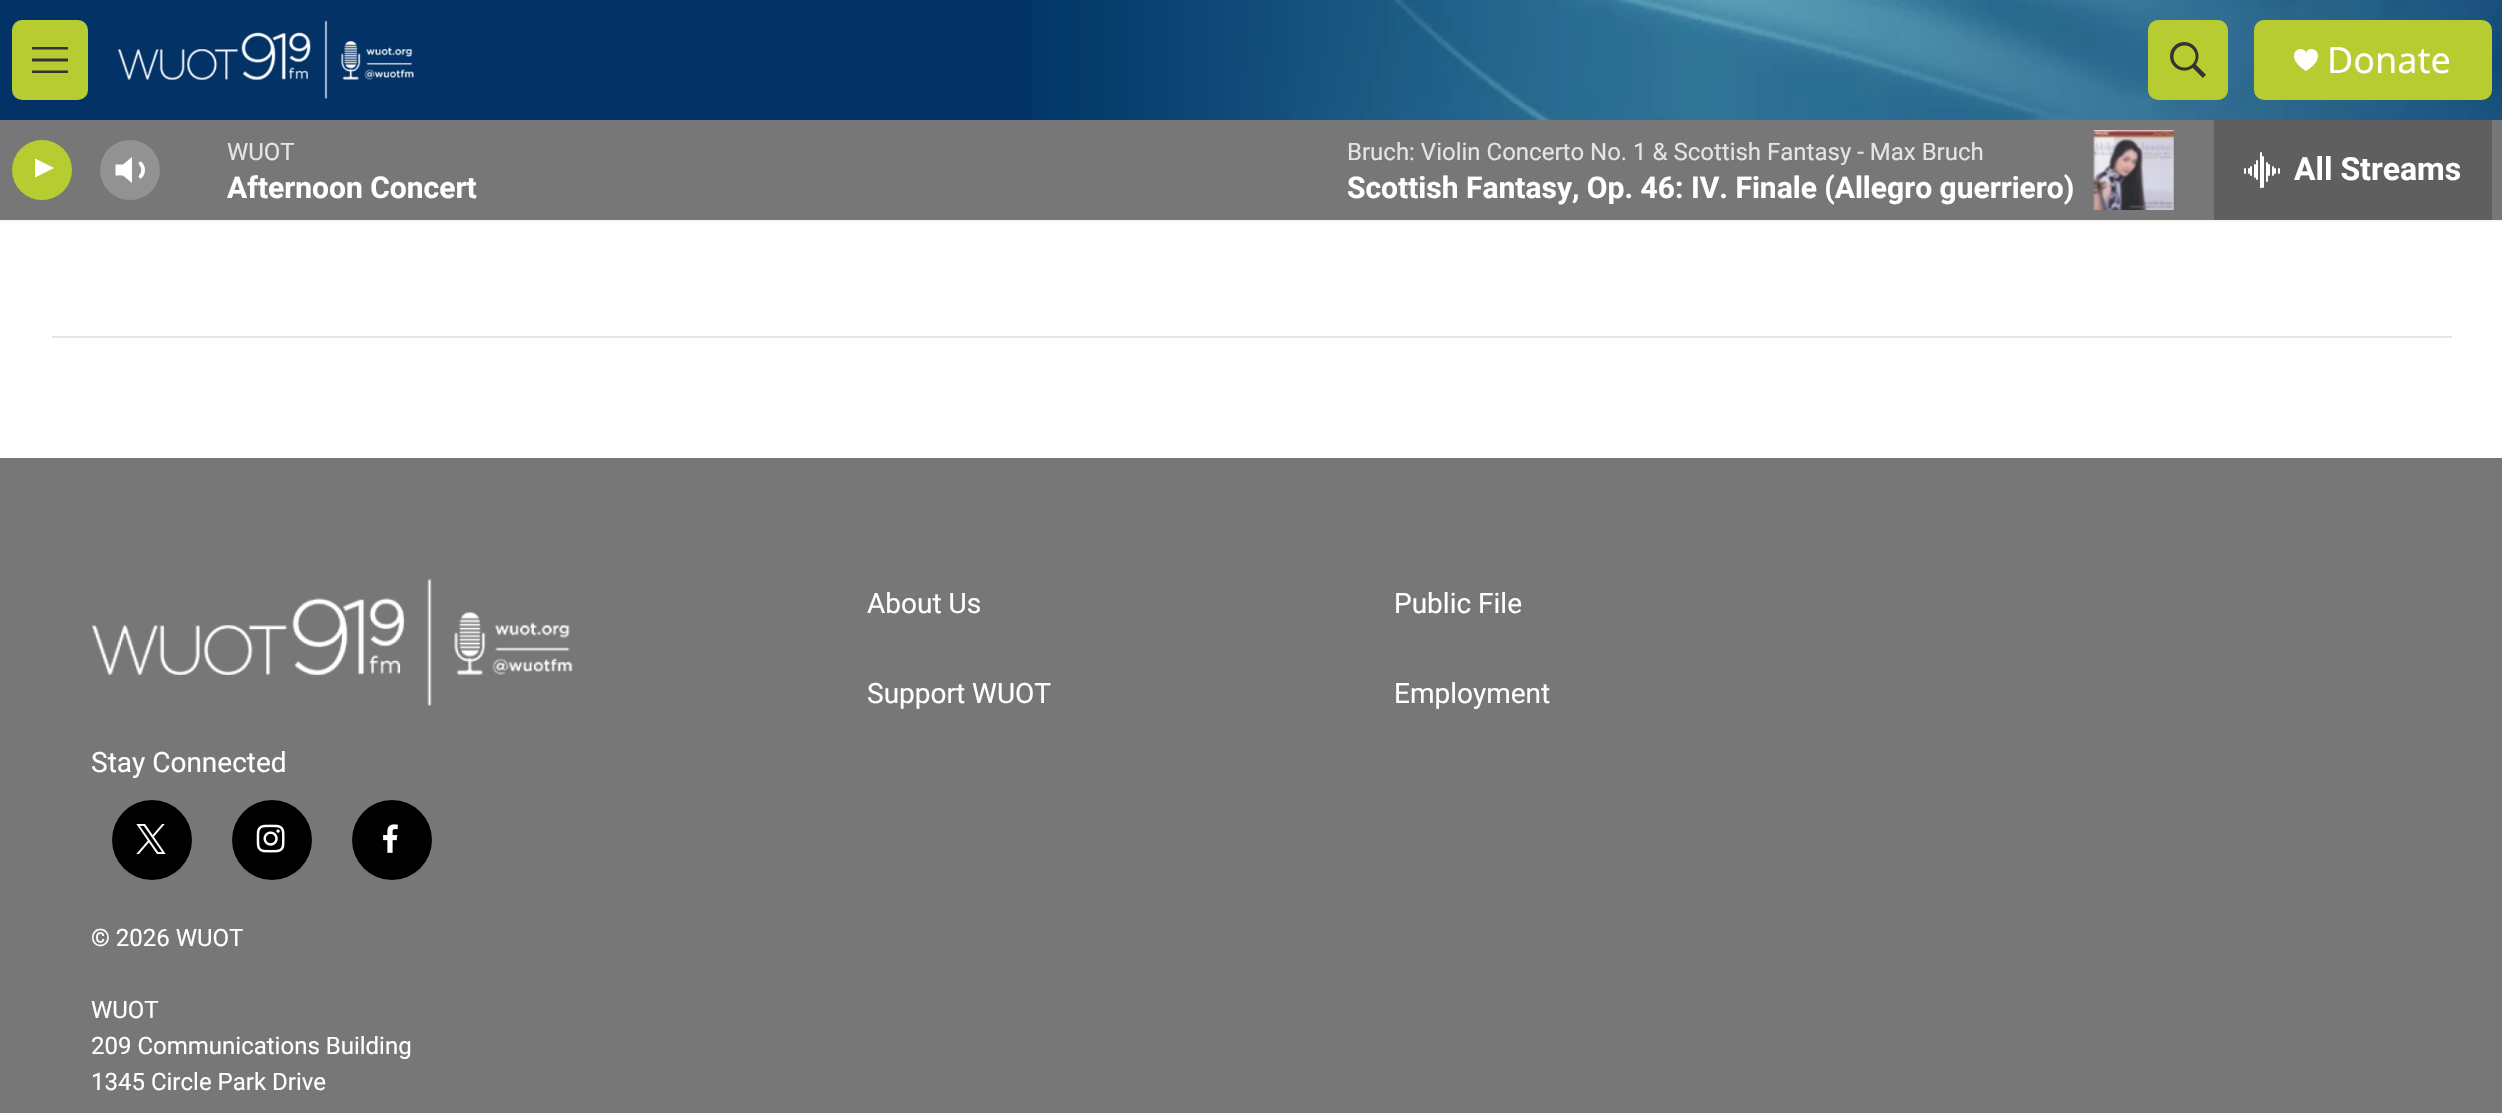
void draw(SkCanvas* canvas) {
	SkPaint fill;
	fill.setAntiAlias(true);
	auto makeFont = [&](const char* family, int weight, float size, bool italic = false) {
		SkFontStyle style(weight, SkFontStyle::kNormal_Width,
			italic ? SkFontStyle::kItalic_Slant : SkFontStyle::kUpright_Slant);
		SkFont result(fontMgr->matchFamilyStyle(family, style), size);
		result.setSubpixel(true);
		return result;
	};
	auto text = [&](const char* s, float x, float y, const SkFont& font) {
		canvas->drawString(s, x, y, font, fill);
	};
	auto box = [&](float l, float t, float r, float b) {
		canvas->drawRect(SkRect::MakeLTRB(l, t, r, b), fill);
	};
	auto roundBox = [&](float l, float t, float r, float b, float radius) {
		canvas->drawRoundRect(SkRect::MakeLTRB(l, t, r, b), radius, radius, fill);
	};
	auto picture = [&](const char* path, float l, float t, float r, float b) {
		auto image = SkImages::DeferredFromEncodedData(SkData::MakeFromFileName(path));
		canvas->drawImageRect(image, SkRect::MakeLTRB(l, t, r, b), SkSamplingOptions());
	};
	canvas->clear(0xFFFFFFFF);
	fill.setColor(0xFFF5F5F5);
	box(0, 220, 2502, 222);
	picture("image0.png", 0, 0, 2502, 120);
	fill.setColor(0xFFB7CC31);
	roundBox(12, 20, 88, 100, 10);
	fill.setColor(0xFF333333);
	canvas->drawPath(SkPathBuilder(SkPathFillType::kEvenOdd).moveTo(32, 61.5f).lineTo(32, 58.5f).lineTo(68, 58.5f).lineTo(68, 61.5f).close().moveTo(32, 49.5f).lineTo(32, 47).lineTo(68, 47).lineTo(68, 49.5f).close().moveTo(32, 73).lineTo(32, 70.5f).lineTo(68, 70.5f).lineTo(68, 73).close().detach(), fill);
	picture("image1.png", 118, 20, 414, 99);
	fill.setColor(0xFFB7CC31);
	roundBox(2148, 20, 2228, 100, 10);
	picture("image2.png", 2170, 42, 2206, 78);
	roundBox(2254, 20, 2492, 100, 10);
	picture("image3.png", 2294, 49, 2318, 71);
	fill.setColor(0xFF777777);
	box(0, 120, 2502, 220);
	fill.setColor(0xFFB7CC31);
	canvas->drawCircle(42, 170, 30, fill);
	fill.setColor(0xFFFFFFFF);
	canvas->drawPath(SkPathBuilder().moveTo(35, 158.5f).lineTo(54, 168).lineTo(35, 177.5f).close().detach(), fill);
	canvas->drawPath(SkPathBuilder().moveTo(132, 157).lineTo(123, 164.5f).lineTo(115.5f, 164.5f).lineTo(115.5f, 175.5f).lineTo(123, 175.5f).lineTo(132, 183).close().detach(), fill);
	fill.setStyle(SkPaint::kStroke_Style);
	fill.setStrokeWidth(3.7f);
	fill.setStrokeCap(SkPaint::kRound_Cap);
	fill.setStrokeJoin(SkPaint::kRound_Join);
	canvas->drawPath(SkPathBuilder().moveTo(140.5f, 163.5f).cubicTo(144, 167, 144, 173, 140.5f, 176.5f).detach(), fill);
	fill.setStyle(SkPaint::kFill_Style);
	fill.setColor(0x33FFFFFF);
	canvas->drawCircle(130, 170, 30, fill);
	picture("image4.png", 2093, 130, 2174, 210);
	fill.setColor(0xFF5F5F5F);
	box(2214, 120, 2492, 220);
	picture("image5.png", 2244, 152, 2280, 188);
	fill.setColor(0xFFE6E6E6);
	box(52, 336, 2452, 338);
	fill.setColor(0xFF777777);
	box(0, 458, 2502, 1113);
	picture("image6.png", 92, 579, 573, 706);
	fill.setColor(0xFF000000);
	canvas->drawCircle(152, 840, 40, fill);
	picture("image7.png", 136, 824, 166, 854);
	canvas->drawCircle(272, 840, 40, fill);
	picture("image8.png", 256, 824, 285, 853);
	canvas->drawCircle(392, 840, 40, fill);
	picture("image9.png", 383, 824, 398, 853);
	auto font1 = makeFont("Noto Sans", 400, 36);
	fill.setColor(0xFFFFFFFF);
	text("Donate", 2327, 73, font1);
	auto font2 = makeFont("Roboto", 400, 24);
	fill.setColor(0xFFE4E4E4);
	text("WUOT", 227, 160, font2);
	auto font3 = makeFont("Roboto", 700, 30);
	fill.setColor(0xFFFFFFFF);
	text("Afternoon Concert", 227, 198, font3);
	fill.setColor(0xFFE4E4E4);
	text("Bruch: Violin Concerto No. 1 & Scottish Fantasy - Max Bruch", 1347, 160, font2);
	fill.setColor(0xFFFFFFFF);
	text("Scottish Fantasy, Op. 46: IV. Finale (Allegro guerriero)", 1347, 198, font3);
	auto font4 = makeFont("Roboto", 700, 32);
	text("All Streams", 2294, 180, font4);
	auto font5 = makeFont("Roboto", 400, 28);
	text("About Us", 867, 613, font5);
	text("Public File", 1394, 613, font5);
	text("Support WUOT", 867, 703, font5);
	text("Employment", 1394, 703, font5);
	text("Stay Connected", 91, 772, font5);
	text("© 2026 WUOT", 91, 946, font2);
	text("WUOT", 91, 1018, font2);
	text("209 Communications Building", 91, 1054, font2);
	text("1345 Circle Park Drive", 91, 1090, font2);
}
